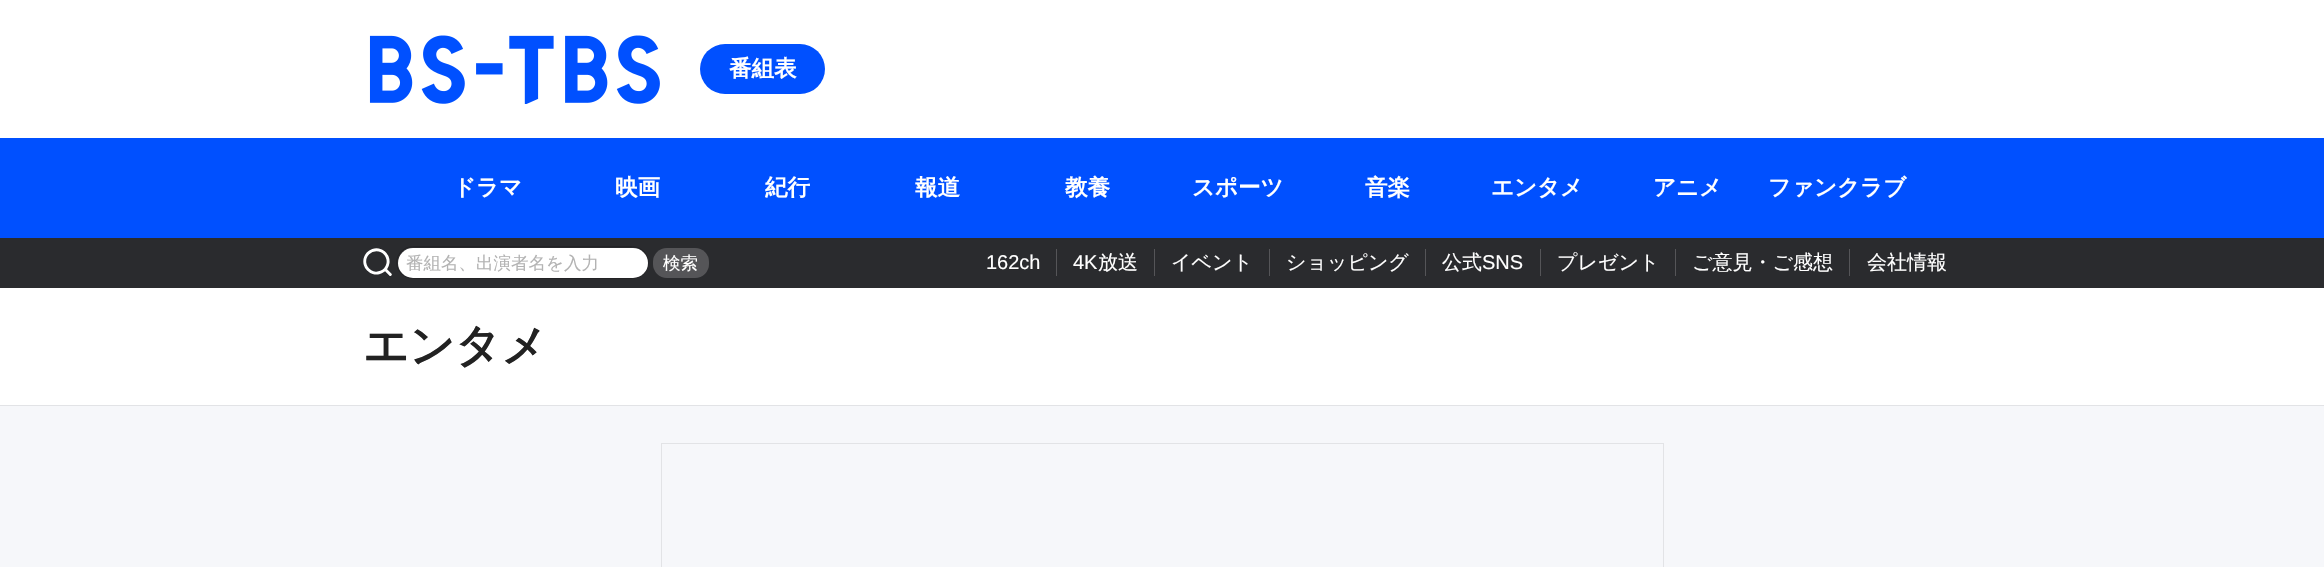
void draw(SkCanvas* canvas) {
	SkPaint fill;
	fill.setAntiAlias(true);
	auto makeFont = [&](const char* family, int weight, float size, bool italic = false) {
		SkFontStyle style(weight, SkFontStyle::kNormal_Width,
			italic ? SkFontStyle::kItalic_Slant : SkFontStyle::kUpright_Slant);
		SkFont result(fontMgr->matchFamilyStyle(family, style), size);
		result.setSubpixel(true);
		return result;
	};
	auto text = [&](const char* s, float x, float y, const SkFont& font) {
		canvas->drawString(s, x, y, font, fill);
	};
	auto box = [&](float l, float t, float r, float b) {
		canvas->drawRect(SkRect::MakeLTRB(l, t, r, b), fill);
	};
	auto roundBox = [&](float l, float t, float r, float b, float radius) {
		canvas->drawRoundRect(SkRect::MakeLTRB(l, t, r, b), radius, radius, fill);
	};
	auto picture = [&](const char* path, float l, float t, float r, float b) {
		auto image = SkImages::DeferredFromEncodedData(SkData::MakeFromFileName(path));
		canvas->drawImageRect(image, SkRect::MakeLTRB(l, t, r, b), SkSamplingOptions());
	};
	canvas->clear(0xFFFFFFFF);
	picture("image0.png", 369, 35, 660, 104);
	fill.setColor(0xFF0050FF);
	roundBox(700, 44, 825, 94, 25);
	box(0, 138, 2324, 238);
	fill.setColor(0xFF2A2B2E);
	box(0, 238, 2324, 288);
	picture("image1.png", 363, 248, 392, 276);
	fill.setStyle(SkPaint::kStroke_Style);
	fill.setStrokeWidth(1);
	fill.setColor(0xFF222225);
	canvas->drawRoundRect(SkRect::MakeLTRB(396.5f, 246.5f, 648.5f, 278.5f), 16, 16, fill);
	fill.setStyle(SkPaint::kFill_Style);
	fill.setColor(0xFFFFFFFF);
	roundBox(398, 248, 648, 278, 15);
	fill.setColor(0xFF555558);
	roundBox(653, 248, 709, 278, 14);
	box(1056, 249, 1057, 276);
	box(1154, 249, 1155, 276);
	box(1269, 249, 1270, 276);
	box(1425, 249, 1426, 276);
	box(1540, 249, 1541, 276);
	box(1675, 249, 1676, 276);
	box(1849, 249, 1850, 276);
	fill.setColor(0xFFF6F7FA);
	box(0, 406, 2324, 567);
	fill.setColor(0xFFE2E3E6);
	box(0, 405, 2324, 406);
	fill.setStyle(SkPaint::kStroke_Style);
	canvas->drawRect(SkRect::MakeLTRB(661.5f, 443.5f, 1663.5f, 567.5f), fill);
	auto font1 = makeFont("WenQuanYi Zen Hei", 700, 22.5f);
	fill.setStyle(SkPaint::kFill_Style);
	fill.setColor(0xFFFFFFFF);
	text("番組表", 729, 76, font1);
	text("ドラマ", 453, 195, font1);
	text("映画", 615, 195, font1);
	text("紀行", 765, 195, font1);
	text("報道", 915, 195, font1);
	text("教養", 1065, 195, font1);
	text("スポーツ", 1192, 195, font1);
	text("音楽", 1365, 195, font1);
	text("エンタメ", 1491, 195, font1);
	text("アニメ", 1653, 195, font1);
	text("ファンクラブ", 1768, 195, font1);
	auto font2 = makeFont("WenQuanYi Zen Hei", 500, 17.5f);
	fill.setColor(0xFFB3B3B3);
	text("番組名、出演者名を入力", 406, 269, font2);
	fill.setColor(0xFFFFFFFF);
	text("検索", 663, 269, font2);
	auto font3 = makeFont("Liberation Sans", 400, 20);
	text("162ch", 986, 269, font3);
	text("4K", 1073, 269, font3);
	auto font4 = makeFont("WenQuanYi Zen Hei", 500, 20);
	text("放送", 1098, 269, font4);
	text("イベント", 1171, 269, font4);
	text("ショッピング", 1286, 269, font4);
	text("公式", 1442, 269, font4);
	text("SNS", 1482, 269, font3);
	text("プレゼント", 1557, 269, font4);
	text("ご意見・ご感想", 1692, 269, font4);
	text("会社情報", 1867, 269, font4);
	auto font5 = makeFont("WenQuanYi Zen Hei", 700, 45);
	fill.setColor(0xFF222222);
	text("エンタメ", 363, 361, font5);
}
